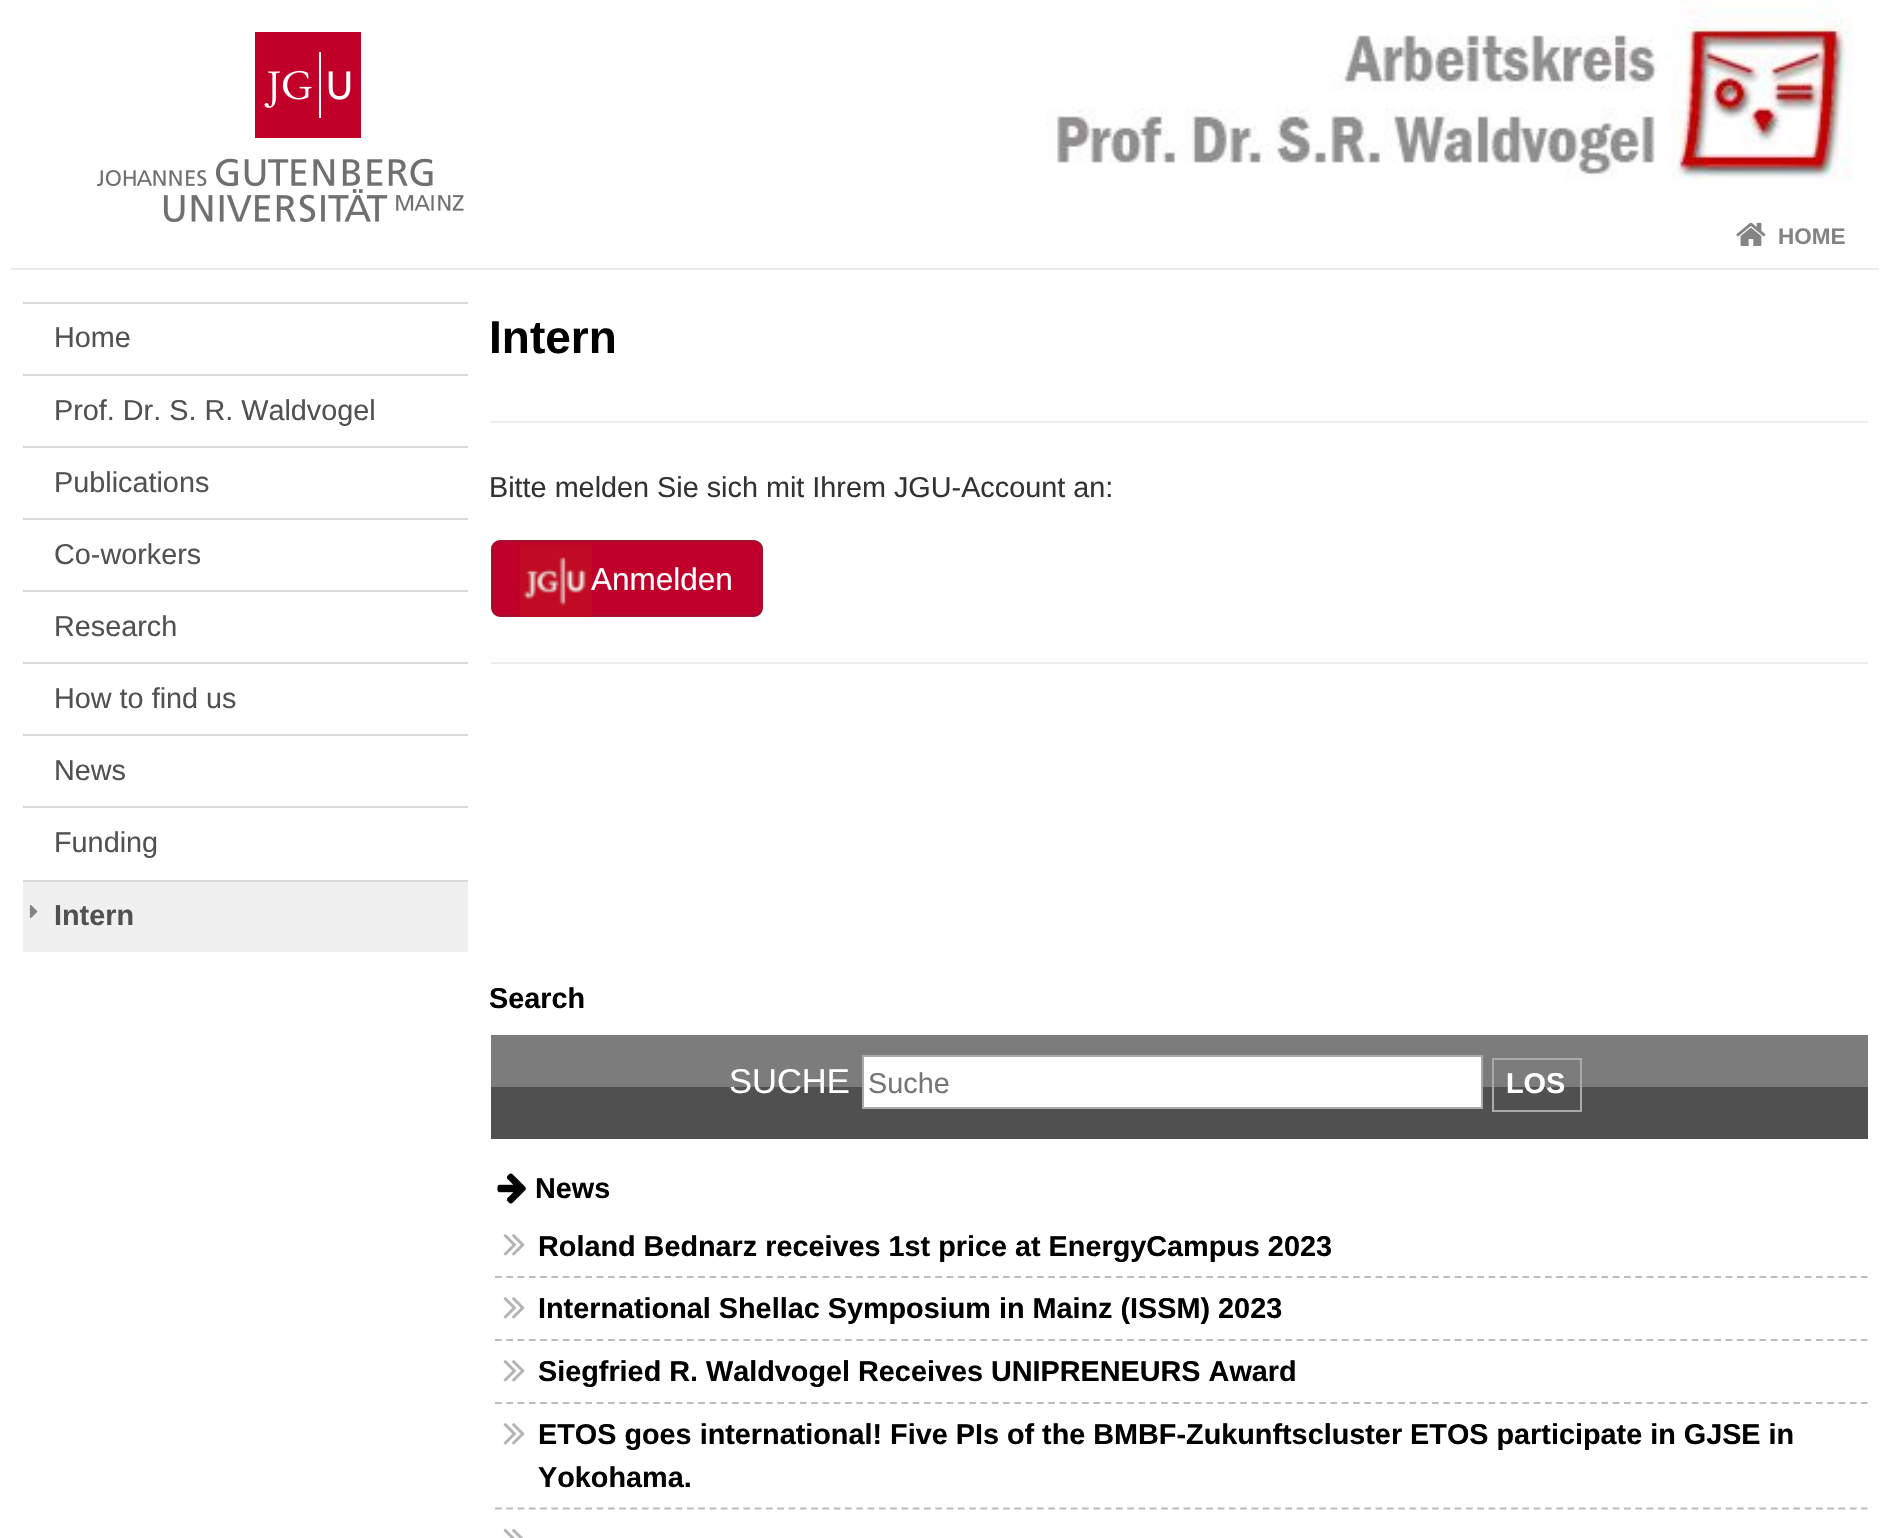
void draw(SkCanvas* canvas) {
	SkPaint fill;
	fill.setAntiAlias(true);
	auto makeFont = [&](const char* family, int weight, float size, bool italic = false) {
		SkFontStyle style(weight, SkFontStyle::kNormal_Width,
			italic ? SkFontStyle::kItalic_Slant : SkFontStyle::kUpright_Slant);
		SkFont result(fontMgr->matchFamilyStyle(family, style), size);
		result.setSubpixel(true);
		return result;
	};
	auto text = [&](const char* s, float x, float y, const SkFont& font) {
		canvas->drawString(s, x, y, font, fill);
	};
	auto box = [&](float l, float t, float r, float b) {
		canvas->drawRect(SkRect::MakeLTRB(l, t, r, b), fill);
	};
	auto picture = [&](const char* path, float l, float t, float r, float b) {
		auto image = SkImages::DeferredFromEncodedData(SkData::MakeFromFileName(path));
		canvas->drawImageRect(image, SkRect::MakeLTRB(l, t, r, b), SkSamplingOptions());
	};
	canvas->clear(0xFFFFFFFF);
	picture("image0.png", 97, 32, 464, 223);
	picture("image1.png", 1046, 0, 1853, 181);
	picture("image2.png", 1736, 222, 1766, 246);
	fill.setColor(0xFFEBEBEB);
	box(11, 268, 1879, 270);
	fill.setColor(0xFFDADADA);
	box(23, 302, 468, 304);
	box(23, 374, 468, 376);
	box(23, 446, 468, 448);
	box(23, 518, 468, 520);
	box(23, 590, 468, 592);
	box(23, 662, 468, 664);
	box(23, 734, 468, 736);
	box(23, 806, 468, 808);
	fill.setColor(0xFFF0F0F0);
	box(23, 882, 468, 952);
	fill.setColor(0xFFDADADA);
	box(23, 880, 468, 882);
	picture("image3.png", 29, 905, 38, 918);
	fill.setColor(0xFFEEEEEE);
	box(491, 421, 1868, 423);
	fill.setColor(0xFFC0002A);
	canvas->drawRoundRect(SkRect::MakeLTRB(492, 541, 762, 616), 8, 8, fill);
	fill.setStyle(SkPaint::kStroke_Style);
	fill.setStrokeWidth(2);
	fill.setColor(0xFFA0122D);
	canvas->drawRoundRect(SkRect::MakeLTRB(492, 541, 762, 616), 8, 8, fill);
	picture("image4.png", 519, 544, 592, 617);
	fill.setStyle(SkPaint::kFill_Style);
	fill.setColor(0xFFEEEEEE);
	box(491, 662, 1868, 664);
	fill.setColor(0xFF7C7C7C);
	box(491, 1035, 1868, 1087);
	fill.setColor(0xFF505050);
	box(491, 1087, 1868, 1139);
	fill.setColor(0xFFFFFFFF);
	canvas->drawRect(SkRect::MakeLTRB(863, 1056, 1482, 1108), fill);
	fill.setStyle(SkPaint::kStroke_Style);
	fill.setColor(0xFFAAAAAA);
	canvas->drawRect(SkRect::MakeLTRB(863, 1056, 1482, 1108), fill);
	canvas->drawRect(SkRect::MakeLTRB(1493, 1059, 1581, 1111), fill);
	picture("image5.png", 497, 1173, 526, 1204);
	picture("image6.png", 503, 1234, 525, 1256);
	fill.setStrokeWidth(2.2f);
	fill.setColor(0xFFBCBCBC);
	fill.setPathEffect(SkDashPathEffect::Make({{6.75f, 4.54f}}, 0));
	canvas->drawPath(SkPathBuilder().moveTo(495, 1277).lineTo(1867.5f, 1277).detach(), fill);
	fill.setPathEffect(nullptr);
	picture("image6.png", 503, 1297, 525, 1319);
	fill.setPathEffect(SkDashPathEffect::Make({{6.75f, 4.54f}}, 0));
	canvas->drawPath(SkPathBuilder().moveTo(495, 1340).lineTo(1867.5f, 1340).detach(), fill);
	fill.setPathEffect(nullptr);
	picture("image6.png", 503, 1360, 525, 1382);
	fill.setPathEffect(SkDashPathEffect::Make({{6.75f, 4.54f}}, 0));
	canvas->drawPath(SkPathBuilder().moveTo(495, 1403).lineTo(1867.5f, 1403).detach(), fill);
	fill.setPathEffect(nullptr);
	picture("image6.png", 503, 1423, 525, 1445);
	fill.setPathEffect(SkDashPathEffect::Make({{6.75f, 4.54f}}, 0));
	canvas->drawPath(SkPathBuilder().moveTo(495, 1508.5f).lineTo(1867.5f, 1508.5f).detach(), fill);
	fill.setPathEffect(nullptr);
	picture("image7.png", 503, 1528, 523, 1538);
	auto font1 = makeFont("Liberation Sans", 700, 22.5f);
	fill.setStyle(SkPaint::kFill_Style);
	fill.setColor(0xFF848484);
	text("HOME", 1778, 244, font1);
	auto font2 = makeFont("Liberation Sans", 400, 28.8f);
	fill.setColor(0xFF515151);
	text("Home", 54, 347, font2);
	text("Prof. Dr. S. R. Waldvogel", 54, 420, font2);
	text("Publications", 54, 492, font2);
	text("Co-workers", 54, 564, font2);
	text("Research", 54, 636, font2);
	text("How to find us", 54, 708, font2);
	text("News", 54, 780, font2);
	text("Funding", 54, 852, font2);
	auto font3 = makeFont("Liberation Sans", 700, 28.8f);
	text("Intern", 54, 925, font3);
	auto font4 = makeFont("Liberation Sans", 700, 46);
	fill.setColor(0xFF000000);
	text("Intern", 489, 353, font4);
	fill.setColor(0xFF333333);
	text("Bitte melden Sie sich mit Ihrem JGU-Account an:", 489, 497, font2);
	auto font5 = makeFont("Liberation Sans", 400, 31.5f);
	fill.setColor(0xFFFFFFFF);
	text("Anmelden", 591, 590, font5);
	fill.setColor(0xFF000000);
	text("Search", 489, 1008, font3);
	auto font6 = makeFont("Liberation Sans", 400, 34.5f);
	fill.setColor(0xFFFFFFFF);
	text("SUCHE", 729, 1093, font6);
	fill.setColor(0xFF757575);
	text("Suche", 868, 1093, font2);
	fill.setColor(0xFFFFFFFF);
	text("LOS", 1506, 1093, font3);
	fill.setColor(0xFF000000);
	text("News", 535, 1198, font3);
	text("Roland Bednarz receives 1st price at EnergyCampus 2023", 538, 1256, font3);
	text("International Shellac Symposium in Mainz (ISSM) 2023", 538, 1318, font3);
	text("Siegfried R. Waldvogel Receives UNIPRENEURS Award", 538, 1381, font3);
	text("ETOS goes international! Five PIs of the BMBF-Zukunftscluster ETOS participate in GJSE in", 538, 1444, font3);
	text("Yokohama.", 538, 1487, font3);
}
